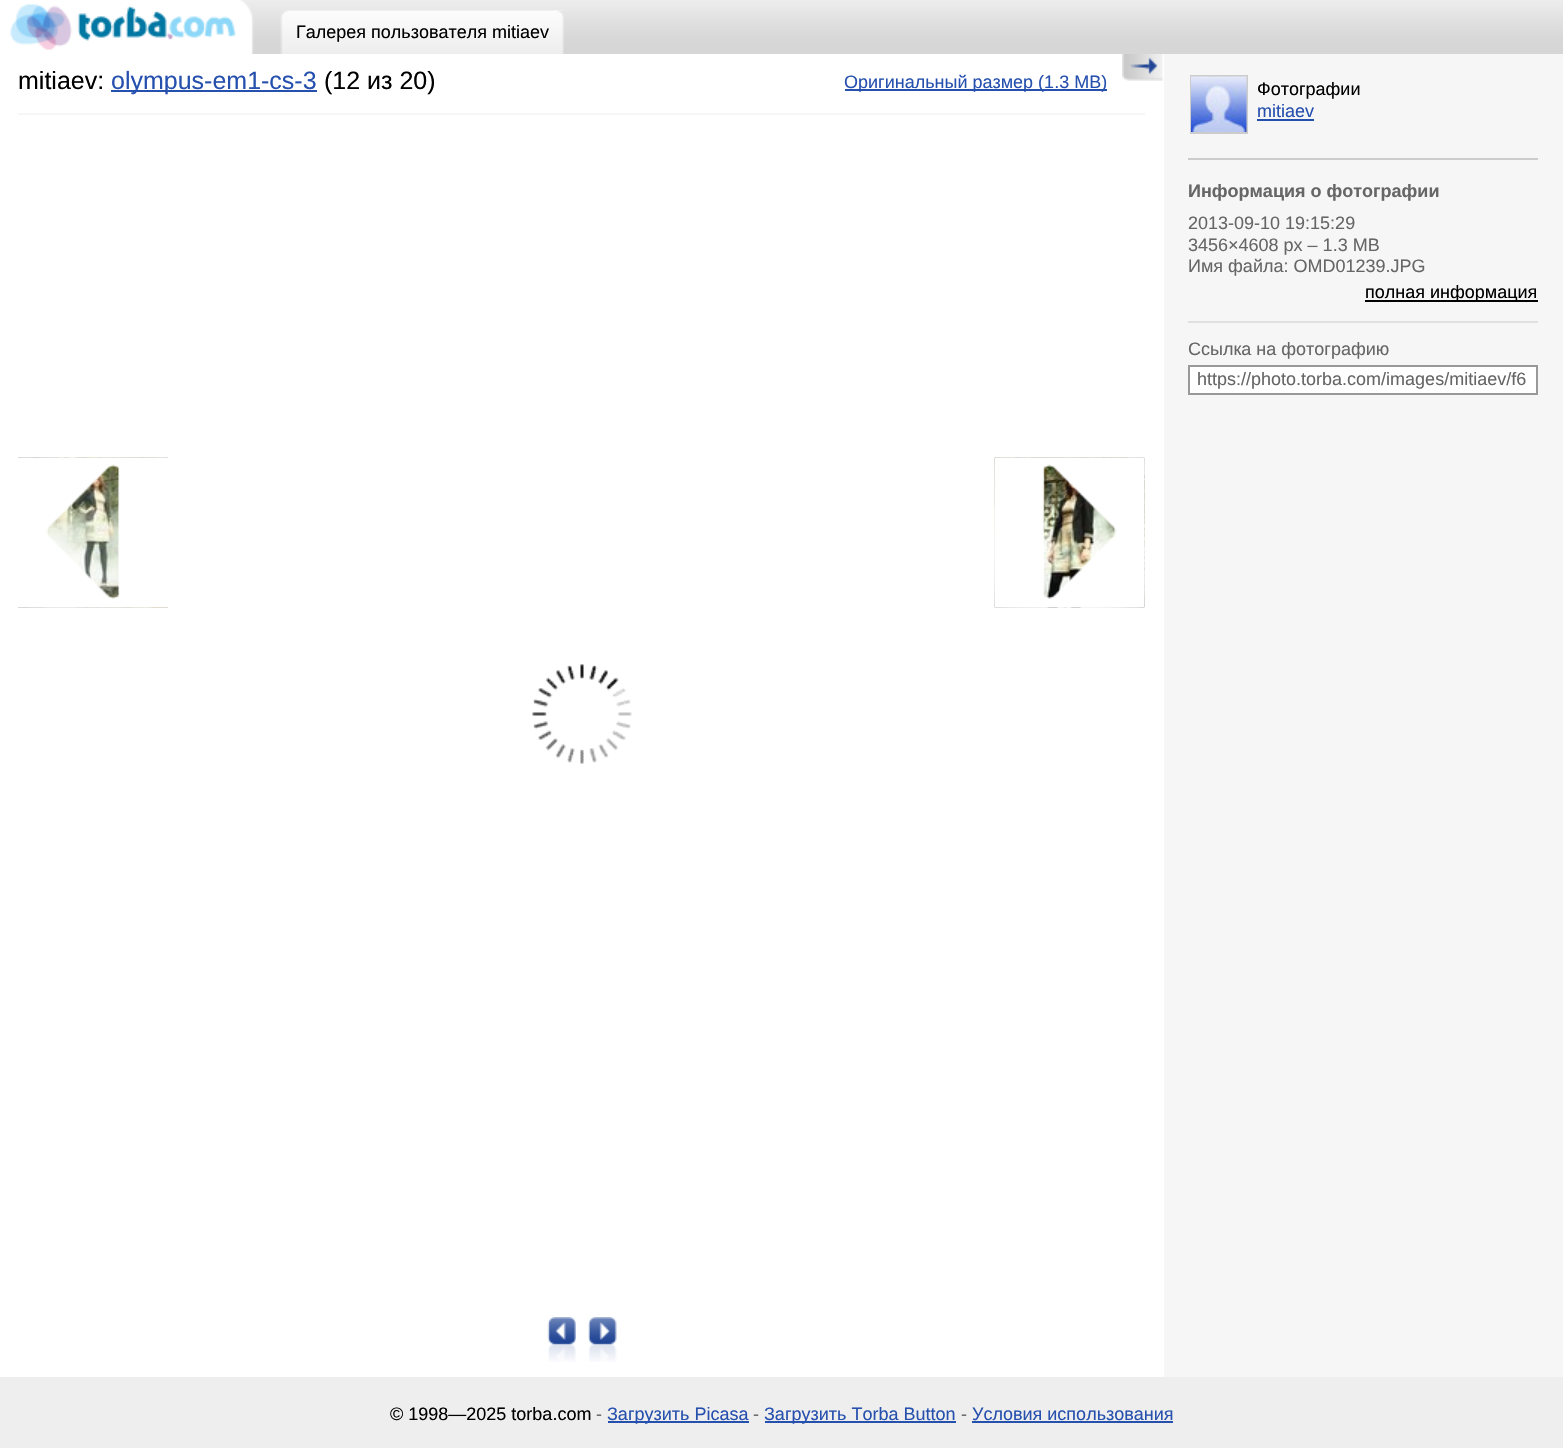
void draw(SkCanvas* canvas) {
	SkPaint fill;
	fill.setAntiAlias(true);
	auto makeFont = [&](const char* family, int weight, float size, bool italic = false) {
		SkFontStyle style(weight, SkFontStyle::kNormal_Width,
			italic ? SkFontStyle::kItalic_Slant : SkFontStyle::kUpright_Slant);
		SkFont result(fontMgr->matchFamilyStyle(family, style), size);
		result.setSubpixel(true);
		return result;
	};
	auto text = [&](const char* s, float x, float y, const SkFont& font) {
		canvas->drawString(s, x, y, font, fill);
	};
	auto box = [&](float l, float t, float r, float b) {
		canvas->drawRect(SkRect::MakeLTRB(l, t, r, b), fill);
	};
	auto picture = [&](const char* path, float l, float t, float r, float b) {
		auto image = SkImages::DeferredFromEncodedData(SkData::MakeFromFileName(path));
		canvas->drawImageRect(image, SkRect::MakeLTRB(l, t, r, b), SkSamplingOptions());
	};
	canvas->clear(0xFFFFFFFF);
	fill.setColor(0xFFF6F6F6);
	box(1164, 54, 1563, 1377);
	picture("image0.png", 253, 0, 1563, 54);
	picture("image1.png", 0, 0, 254, 54);
	picture("image2.png", 280, 10, 564, 54);
	picture("image3.png", 554, 10, 564, 54);
	box(18, 113, 1145, 115);
	fill.setColor(0xFF2650AE);
	box(111, 90, 317, 92);
	box(845, 89, 1107, 91);
	picture("image4.png", 18, 457, 168, 608);
	picture("image5.png", 18, 457, 168, 608);
	picture("image6.png", 994, 457, 1145, 608);
	picture("image7.png", 994, 457, 1145, 608);
	picture("image8.png", 532, 664, 632, 764);
	picture("image9.png", 547, 1317, 576, 1362);
	picture("image10.png", 588, 1317, 617, 1362);
	picture("image11.png", 1122, 54, 1163, 81);
	fill.setColor(0xFFCCCCCC);
	box(1188, 158, 1538, 160);
	fill.setStyle(SkPaint::kStroke_Style);
	fill.setStrokeWidth(2);
	canvas->drawRect(SkRect::MakeLTRB(1191, 76, 1247, 133), fill);
	picture("image12.png", 1191, 76, 1247, 132);
	fill.setStyle(SkPaint::kFill_Style);
	fill.setColor(0xFF2650AE);
	box(1257, 119, 1314, 121);
	fill.setColor(0xFF000000);
	box(1365, 300, 1538, 302);
	fill.setColor(0xFFE0E0E0);
	box(1188, 321, 1538, 323);
	fill.setColor(0xFFFFFFFF);
	canvas->drawRect(SkRect::MakeLTRB(1189, 366, 1537, 394), fill);
	fill.setStyle(SkPaint::kStroke_Style);
	fill.setColor(0xFF999999);
	canvas->drawRect(SkRect::MakeLTRB(1189, 366, 1537, 394), fill);
	fill.setStyle(SkPaint::kFill_Style);
	fill.setColor(0xFFEEEEEE);
	box(0, 1377, 1563, 1448);
	fill.setColor(0xFF2650AE);
	box(608, 1421, 749, 1423);
	box(765, 1421, 956, 1423);
	box(972, 1421, 1173, 1423);
	auto font1 = makeFont("Liberation Sans", 400, 18);
	fill.setColor(0xFF000000);
	text("Галерея пользователя mitiaev", 296, 38, font1);
	auto font2 = makeFont("Liberation Sans", 400, 25);
	text("mitiaev:", 18, 89, font2);
	fill.setColor(0xFF2650AE);
	text("olympus-em1-cs-3", 111, 89, font2);
	fill.setColor(0xFF000000);
	text("(12 из 20)", 324, 89, font2);
	fill.setColor(0xFF2650AE);
	text("Оригинальный размер (1.3 MB)", 844, 88, font1);
	fill.setColor(0xFF000000);
	text("Фотографии", 1257, 95, font1);
	fill.setColor(0xFF2650AE);
	text("mitiaev", 1257, 117, font1);
	auto font3 = makeFont("Liberation Sans", 700, 18);
	fill.setColor(0xFF666666);
	text("Информация о фотографии", 1188, 197, font3);
	text("2013-09-10 19:15:29", 1188, 229, font1);
	text("3456×4608 px – 1.3 MB", 1188, 251, font1);
	text("Имя файла: OMD01239.JPG", 1188, 272, font1);
	fill.setColor(0xFF000000);
	text("полная информация", 1365, 298, font1);
	fill.setColor(0xFF666666);
	text("Ссылка на фотографию", 1188, 355, font1);
	text("https://photo.torba.com/images/mitiaev/f6", 1197, 385, font1);
	fill.setColor(0xFF000000);
	text("© 1998—2025 torba.com", 390, 1420, font1);
	fill.setColor(0xFF666666);
	text("-", 596, 1420, font1);
	fill.setColor(0xFF2650AE);
	text("Загрузить Picasa", 607, 1420, font1);
	fill.setColor(0xFF666666);
	text("-", 753, 1420, font1);
	fill.setColor(0xFF2650AE);
	text("Загрузить Torba Button", 764, 1420, font1);
	fill.setColor(0xFF666666);
	text("-", 961, 1420, font1);
	fill.setColor(0xFF2650AE);
	text("Условия использования", 972, 1420, font1);
}
